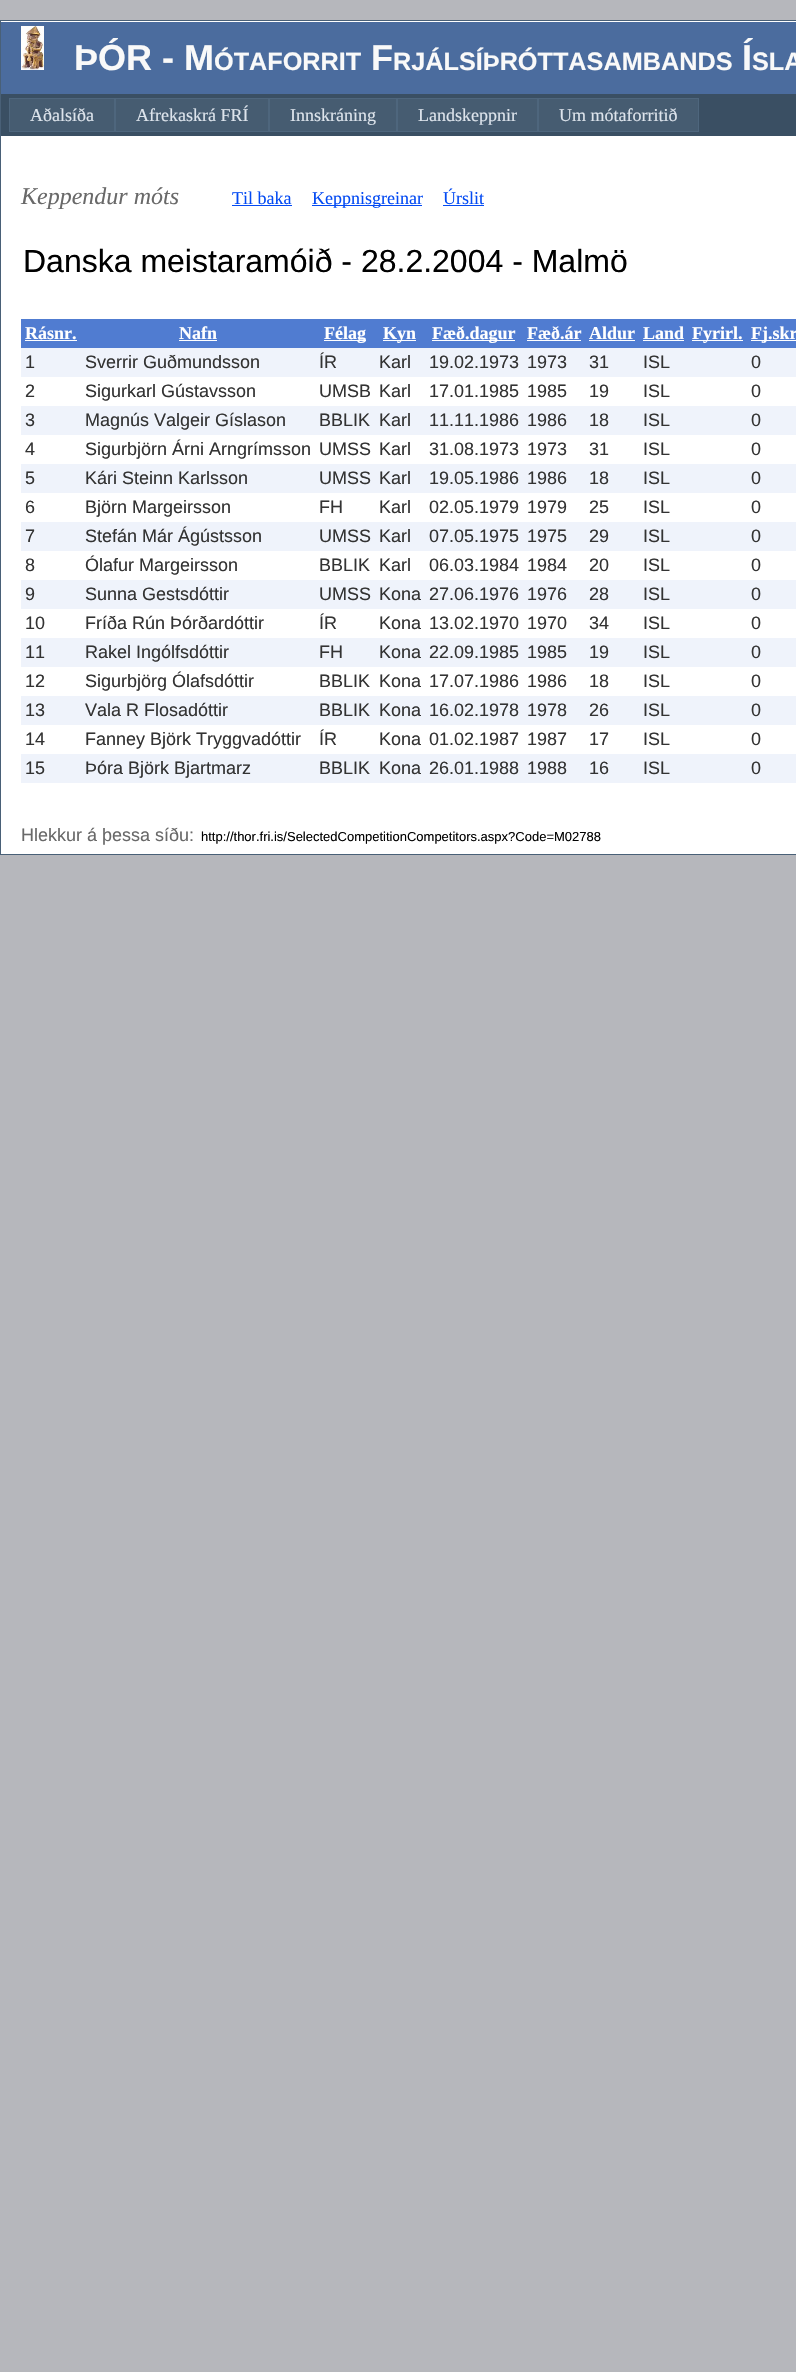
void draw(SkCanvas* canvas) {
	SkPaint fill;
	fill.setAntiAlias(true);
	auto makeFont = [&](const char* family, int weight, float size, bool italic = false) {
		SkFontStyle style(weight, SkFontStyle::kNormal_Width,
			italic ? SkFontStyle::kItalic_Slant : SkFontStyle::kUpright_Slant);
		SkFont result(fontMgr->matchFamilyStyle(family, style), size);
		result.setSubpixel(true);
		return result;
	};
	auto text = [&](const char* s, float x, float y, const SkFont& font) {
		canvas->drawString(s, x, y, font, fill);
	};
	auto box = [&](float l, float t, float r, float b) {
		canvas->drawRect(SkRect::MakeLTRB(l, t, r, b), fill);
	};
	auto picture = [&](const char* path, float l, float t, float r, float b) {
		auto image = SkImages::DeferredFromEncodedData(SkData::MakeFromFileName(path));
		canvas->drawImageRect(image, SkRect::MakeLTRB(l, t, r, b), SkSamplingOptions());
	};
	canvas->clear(0xFFB6B7BC);
	fill.setColor(0xFFFFFFFF);
	canvas->drawRect(SkRect::MakeLTRB(0.5f, 20.5f, 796.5f, 854.5f), fill);
	fill.setStyle(SkPaint::kStroke_Style);
	fill.setStrokeWidth(1);
	fill.setColor(0xFF496077);
	canvas->drawRect(SkRect::MakeLTRB(0.5f, 20.5f, 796.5f, 854.5f), fill);
	fill.setStyle(SkPaint::kFill_Style);
	fill.setColor(0xFF4B6C9E);
	box(1, 22, 796, 94);
	picture("image0.png", 21, 26, 44, 70);
	fill.setColor(0xFF3A4F63);
	box(1, 94, 796, 136);
	fill.setColor(0xFF465C71);
	canvas->drawRect(SkRect::MakeLTRB(9.5f, 98.5f, 114.5f, 131.5f), fill);
	fill.setStyle(SkPaint::kStroke_Style);
	fill.setColor(0xFF4E667D);
	canvas->drawRect(SkRect::MakeLTRB(9.5f, 98.5f, 114.5f, 131.5f), fill);
	fill.setStyle(SkPaint::kFill_Style);
	fill.setColor(0xFF465C71);
	canvas->drawRect(SkRect::MakeLTRB(115.5f, 98.5f, 268.5f, 131.5f), fill);
	fill.setStyle(SkPaint::kStroke_Style);
	fill.setColor(0xFF4E667D);
	canvas->drawRect(SkRect::MakeLTRB(115.5f, 98.5f, 268.5f, 131.5f), fill);
	fill.setStyle(SkPaint::kFill_Style);
	fill.setColor(0xFF465C71);
	canvas->drawRect(SkRect::MakeLTRB(269.5f, 98.5f, 396.5f, 131.5f), fill);
	fill.setStyle(SkPaint::kStroke_Style);
	fill.setColor(0xFF4E667D);
	canvas->drawRect(SkRect::MakeLTRB(269.5f, 98.5f, 396.5f, 131.5f), fill);
	fill.setStyle(SkPaint::kFill_Style);
	fill.setColor(0xFF465C71);
	canvas->drawRect(SkRect::MakeLTRB(397.5f, 98.5f, 537.5f, 131.5f), fill);
	fill.setStyle(SkPaint::kStroke_Style);
	fill.setColor(0xFF4E667D);
	canvas->drawRect(SkRect::MakeLTRB(397.5f, 98.5f, 537.5f, 131.5f), fill);
	fill.setStyle(SkPaint::kFill_Style);
	fill.setColor(0xFF465C71);
	canvas->drawRect(SkRect::MakeLTRB(538.5f, 98.5f, 698.5f, 131.5f), fill);
	fill.setStyle(SkPaint::kStroke_Style);
	fill.setColor(0xFF4E667D);
	canvas->drawRect(SkRect::MakeLTRB(538.5f, 98.5f, 698.5f, 131.5f), fill);
	fill.setStyle(SkPaint::kFill_Style);
	fill.setColor(0xFF034AF3);
	box(232, 205, 292, 206);
	box(312, 205, 422, 206);
	box(443, 205, 484, 206);
	fill.setColor(0xFF507CD1);
	box(21, 319, 796, 348);
	fill.setColor(0xFFFFFFFF);
	box(25, 340, 77, 341);
	box(179, 340, 217, 341);
	box(324, 340, 366, 341);
	box(383, 340, 416, 341);
	box(432, 340, 515, 341);
	box(527, 340, 581, 341);
	box(589, 340, 635, 341);
	box(643, 340, 684, 341);
	box(692, 340, 743, 341);
	box(751, 340, 796, 341);
	fill.setColor(0xFFEFF3FB);
	box(21, 348, 796, 377);
	box(21, 406, 796, 435);
	box(21, 464, 796, 493);
	box(21, 522, 796, 551);
	box(21, 580, 796, 609);
	box(21, 638, 796, 667);
	box(21, 696, 796, 725);
	box(21, 754, 796, 783);
	auto font1 = makeFont("Liberation Sans", 700, 36);
	fill.setColor(0xFFF9F9F9);
	text("ÞÓR - M", 74, 70, font1);
	auto font2 = makeFont("Liberation Sans", 700, 25.25f);
	text("ÓTAFORRIT", 214, 70, font2);
	text("F", 371, 70, font1);
	text("RJÁLSÍÞRÓTTASAMBANDS", 393, 70, font2);
	text("Í", 742, 70, font1);
	text("SLA", 752, 70, font2);
	auto font3 = makeFont("Liberation Serif", 400, 18);
	fill.setColor(0xFFDDE4EC);
	text("Aðalsíða", 30, 121, font3);
	text("Afrekaskrá FRÍ", 136, 121, font3);
	text("Innskráning", 290, 121, font3);
	text("Landskeppnir", 418, 121, font3);
	text("Um mótaforritið", 559, 121, font3);
	auto font4 = makeFont("Liberation Serif", 400, 24, true);
	fill.setColor(0xFF696969);
	text("Keppendur móts", 21, 204, font4);
	fill.setColor(0xFF034AF3);
	text("Til baka", 232, 204, font3);
	text("Keppnisgreinar", 312, 204, font3);
	text("Úrslit", 443, 204, font3);
	auto font5 = makeFont("Liberation Sans", 400, 32);
	fill.setColor(0xFF000000);
	text("Danska meistaramóið - 28.2.2004 - Malmö", 23, 272, font5);
	auto font6 = makeFont("Liberation Serif", 700, 18);
	fill.setColor(0xFFFFFFFF);
	text("Rásnr.", 25, 339, font6);
	text("Nafn", 179, 339, font6);
	text("Félag", 324, 339, font6);
	text("Kyn", 383, 339, font6);
	text("Fæð.dagur", 432, 339, font6);
	text("Fæð.ár", 527, 339, font6);
	text("Aldur", 589, 339, font6);
	text("Land", 643, 339, font6);
	text("Fyrirl.", 692, 339, font6);
	text("Fj.skr", 751, 339, font6);
	auto font7 = makeFont("Liberation Sans", 400, 18);
	fill.setColor(0xFF333333);
	text("1", 25, 368, font7);
	text("Sverrir Guðmundsson", 85, 368, font7);
	text("ÍR", 319, 368, font7);
	text("Karl", 379, 368, font7);
	text("19.02.1973", 429, 368, font7);
	text("1973", 527, 368, font7);
	text("31", 589, 368, font7);
	text("ISL", 643, 368, font7);
	text("0", 751, 368, font7);
	text("2", 25, 397, font7);
	text("Sigurkarl Gústavsson", 85, 397, font7);
	text("UMSB", 319, 397, font7);
	text("Karl", 379, 397, font7);
	text("17.01.1985", 429, 397, font7);
	text("1985", 527, 397, font7);
	text("19", 589, 397, font7);
	text("ISL", 643, 397, font7);
	text("0", 751, 397, font7);
	text("3", 25, 426, font7);
	text("Magnús Valgeir Gíslason", 85, 426, font7);
	text("BBLIK", 319, 426, font7);
	text("Karl", 379, 426, font7);
	text("11.11.1986", 429, 426, font7);
	text("1986", 527, 426, font7);
	text("18", 589, 426, font7);
	text("ISL", 643, 426, font7);
	text("0", 751, 426, font7);
	text("4", 25, 455, font7);
	text("Sigurbjörn Árni Arngrímsson", 85, 455, font7);
	text("UMSS", 319, 455, font7);
	text("Karl", 379, 455, font7);
	text("31.08.1973", 429, 455, font7);
	text("1973", 527, 455, font7);
	text("31", 589, 455, font7);
	text("ISL", 643, 455, font7);
	text("0", 751, 455, font7);
	text("5", 25, 484, font7);
	text("Kári Steinn Karlsson", 85, 484, font7);
	text("UMSS", 319, 484, font7);
	text("Karl", 379, 484, font7);
	text("19.05.1986", 429, 484, font7);
	text("1986", 527, 484, font7);
	text("18", 589, 484, font7);
	text("ISL", 643, 484, font7);
	text("0", 751, 484, font7);
	text("6", 25, 513, font7);
	text("Björn Margeirsson", 85, 513, font7);
	text("FH", 319, 513, font7);
	text("Karl", 379, 513, font7);
	text("02.05.1979", 429, 513, font7);
	text("1979", 527, 513, font7);
	text("25", 589, 513, font7);
	text("ISL", 643, 513, font7);
	text("0", 751, 513, font7);
	text("7", 25, 542, font7);
	text("Stefán Már Ágústsson", 85, 542, font7);
	text("UMSS", 319, 542, font7);
	text("Karl", 379, 542, font7);
	text("07.05.1975", 429, 542, font7);
	text("1975", 527, 542, font7);
	text("29", 589, 542, font7);
	text("ISL", 643, 542, font7);
	text("0", 751, 542, font7);
	text("8", 25, 571, font7);
	text("Ólafur Margeirsson", 85, 571, font7);
	text("BBLIK", 319, 571, font7);
	text("Karl", 379, 571, font7);
	text("06.03.1984", 429, 571, font7);
	text("1984", 527, 571, font7);
	text("20", 589, 571, font7);
	text("ISL", 643, 571, font7);
	text("0", 751, 571, font7);
	text("9", 25, 600, font7);
	text("Sunna Gestsdóttir", 85, 600, font7);
	text("UMSS", 319, 600, font7);
	text("Kona", 379, 600, font7);
	text("27.06.1976", 429, 600, font7);
	text("1976", 527, 600, font7);
	text("28", 589, 600, font7);
	text("ISL", 643, 600, font7);
	text("0", 751, 600, font7);
	text("10", 25, 629, font7);
	text("Fríða Rún Þórðardóttir", 85, 629, font7);
	text("ÍR", 319, 629, font7);
	text("Kona", 379, 629, font7);
	text("13.02.1970", 429, 629, font7);
	text("1970", 527, 629, font7);
	text("34", 589, 629, font7);
	text("ISL", 643, 629, font7);
	text("0", 751, 629, font7);
	text("11", 25, 658, font7);
	text("Rakel Ingólfsdóttir", 85, 658, font7);
	text("FH", 319, 658, font7);
	text("Kona", 379, 658, font7);
	text("22.09.1985", 429, 658, font7);
	text("1985", 527, 658, font7);
	text("19", 589, 658, font7);
	text("ISL", 643, 658, font7);
	text("0", 751, 658, font7);
	text("12", 25, 687, font7);
	text("Sigurbjörg Ólafsdóttir", 85, 687, font7);
	text("BBLIK", 319, 687, font7);
	text("Kona", 379, 687, font7);
	text("17.07.1986", 429, 687, font7);
	text("1986", 527, 687, font7);
	text("18", 589, 687, font7);
	text("ISL", 643, 687, font7);
	text("0", 751, 687, font7);
	text("13", 25, 716, font7);
	text("Vala R Flosadóttir", 85, 716, font7);
	text("BBLIK", 319, 716, font7);
	text("Kona", 379, 716, font7);
	text("16.02.1978", 429, 716, font7);
	text("1978", 527, 716, font7);
	text("26", 589, 716, font7);
	text("ISL", 643, 716, font7);
	text("0", 751, 716, font7);
	text("14", 25, 745, font7);
	text("Fanney Björk Tryggvadóttir", 85, 745, font7);
	text("ÍR", 319, 745, font7);
	text("Kona", 379, 745, font7);
	text("01.02.1987", 429, 745, font7);
	text("1987", 527, 745, font7);
	text("17", 589, 745, font7);
	text("ISL", 643, 745, font7);
	text("0", 751, 745, font7);
	text("15", 25, 774, font7);
	text("Þóra Björk Bjartmarz", 85, 774, font7);
	text("BBLIK", 319, 774, font7);
	text("Kona", 379, 774, font7);
	text("26.01.1988", 429, 774, font7);
	text("1988", 527, 774, font7);
	text("16", 589, 774, font7);
	text("ISL", 643, 774, font7);
	text("0", 751, 774, font7);
	fill.setColor(0xFF696969);
	text("Hlekkur á þessa síðu:", 21, 841, font7);
	auto font8 = makeFont("Liberation Sans", 400, 13);
	fill.setColor(0xFF000000);
	text("http://thor.fri.is/SelectedCompetitionCompetitors.aspx?Code=M02788", 201, 841, font8);
}
